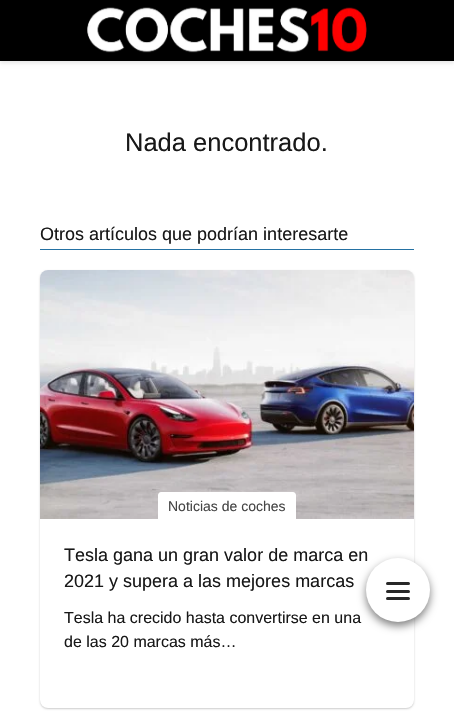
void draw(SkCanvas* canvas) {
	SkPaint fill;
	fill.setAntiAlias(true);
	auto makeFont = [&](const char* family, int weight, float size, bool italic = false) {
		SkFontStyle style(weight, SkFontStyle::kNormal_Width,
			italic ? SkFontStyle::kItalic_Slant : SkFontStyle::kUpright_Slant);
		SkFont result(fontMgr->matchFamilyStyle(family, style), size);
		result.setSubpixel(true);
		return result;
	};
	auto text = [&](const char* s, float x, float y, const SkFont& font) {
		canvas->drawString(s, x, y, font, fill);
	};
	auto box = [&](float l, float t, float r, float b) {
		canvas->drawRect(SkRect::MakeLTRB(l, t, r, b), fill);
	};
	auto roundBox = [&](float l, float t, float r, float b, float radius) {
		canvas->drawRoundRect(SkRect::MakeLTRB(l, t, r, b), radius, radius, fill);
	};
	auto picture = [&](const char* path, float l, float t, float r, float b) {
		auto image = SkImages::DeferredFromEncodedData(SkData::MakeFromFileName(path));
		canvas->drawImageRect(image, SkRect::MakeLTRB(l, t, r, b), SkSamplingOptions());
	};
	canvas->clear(0xFFFFFFFF);
	fill.setColor(0x1A000000);
	fill.setMaskFilter(SkMaskFilter::MakeBlur(kNormal_SkBlurStyle, 2));
	canvas->drawRect(SkRect::MakeLTRB(0, 2, 454, 63), fill);
	fill.setMaskFilter(nullptr);
	fill.setColor(0xFF000000);
	box(0, 0, 454, 61);
	picture("image0.png", 87, 7, 367, 53);
	fill.setColor(0x33000000);
	fill.setMaskFilter(SkMaskFilter::MakeBlur(kNormal_SkBlurStyle, 1));
	canvas->drawRoundRect(SkRect::MakeLTRB(40, 271, 414, 709), 8, 8, fill);
	fill.setMaskFilter(nullptr);
	fill.setColor(0xFFFFFFFF);
	roundBox(40, 270, 414, 708, 8);
	fill.setColor(0x80000000);
	fill.setMaskFilter(SkMaskFilter::MakeBlur(kNormal_SkBlurStyle, 4));
	canvas->drawRoundRect(SkRect::MakeLTRB(366, 562, 430, 626), 32, 32, fill);
	fill.setMaskFilter(nullptr);
	fill.setColor(0xFF2471A3);
	box(40, 249, 414, 250);
	picture("image1.png", 40, 270, 414, 519);
	fill.setColor(0xFFFFFFFF);
	canvas->drawPath(SkPathBuilder().moveTo(161, 492).lineTo(293, 492).cubicTo(294.5f, 492, 296, 493.5f, 296, 495).lineTo(296, 519).lineTo(158, 519).lineTo(158, 495).cubicTo(158, 493.5f, 159.5f, 492, 161, 492).close().detach(), fill);
	auto font1 = makeFont("Liberation Sans", 400, 25.5f);
	fill.setColor(0xFF181818);
	text("Nada encontrado.", 125, 151, font1);
	auto font2 = makeFont("Liberation Sans", 400, 18);
	text("Otros artículos que podrían interesarte", 40, 240, font2);
	auto font3 = makeFont("Liberation Sans", 400, 14);
	fill.setColor(0xFF444444);
	text("Noticias de coches", 168, 511, font3);
	fill.setColor(0xFF181818);
	text("Tesla gana un gran valor de marca en", 64, 561, font2);
	fill.setColor(0xFFFFFFFF);
	canvas->drawCircle(398, 590, 32, fill);
	fill.setColor(0xFF282828);
	roundBox(386, 597, 410, 600, 1.5f);
	roundBox(386, 590, 410, 593, 1.5f);
	roundBox(386, 582, 410, 585, 1.5f);
	fill.setColor(0xFF181818);
	text("2021 y supera a las mejores marcas", 64, 587, font2);
	auto font4 = makeFont("Liberation Sans", 400, 16);
	text("Tesla ha crecido hasta convertirse en una", 64, 623, font4);
	text("de las 20 marcas más…", 64, 647, font4);
}
